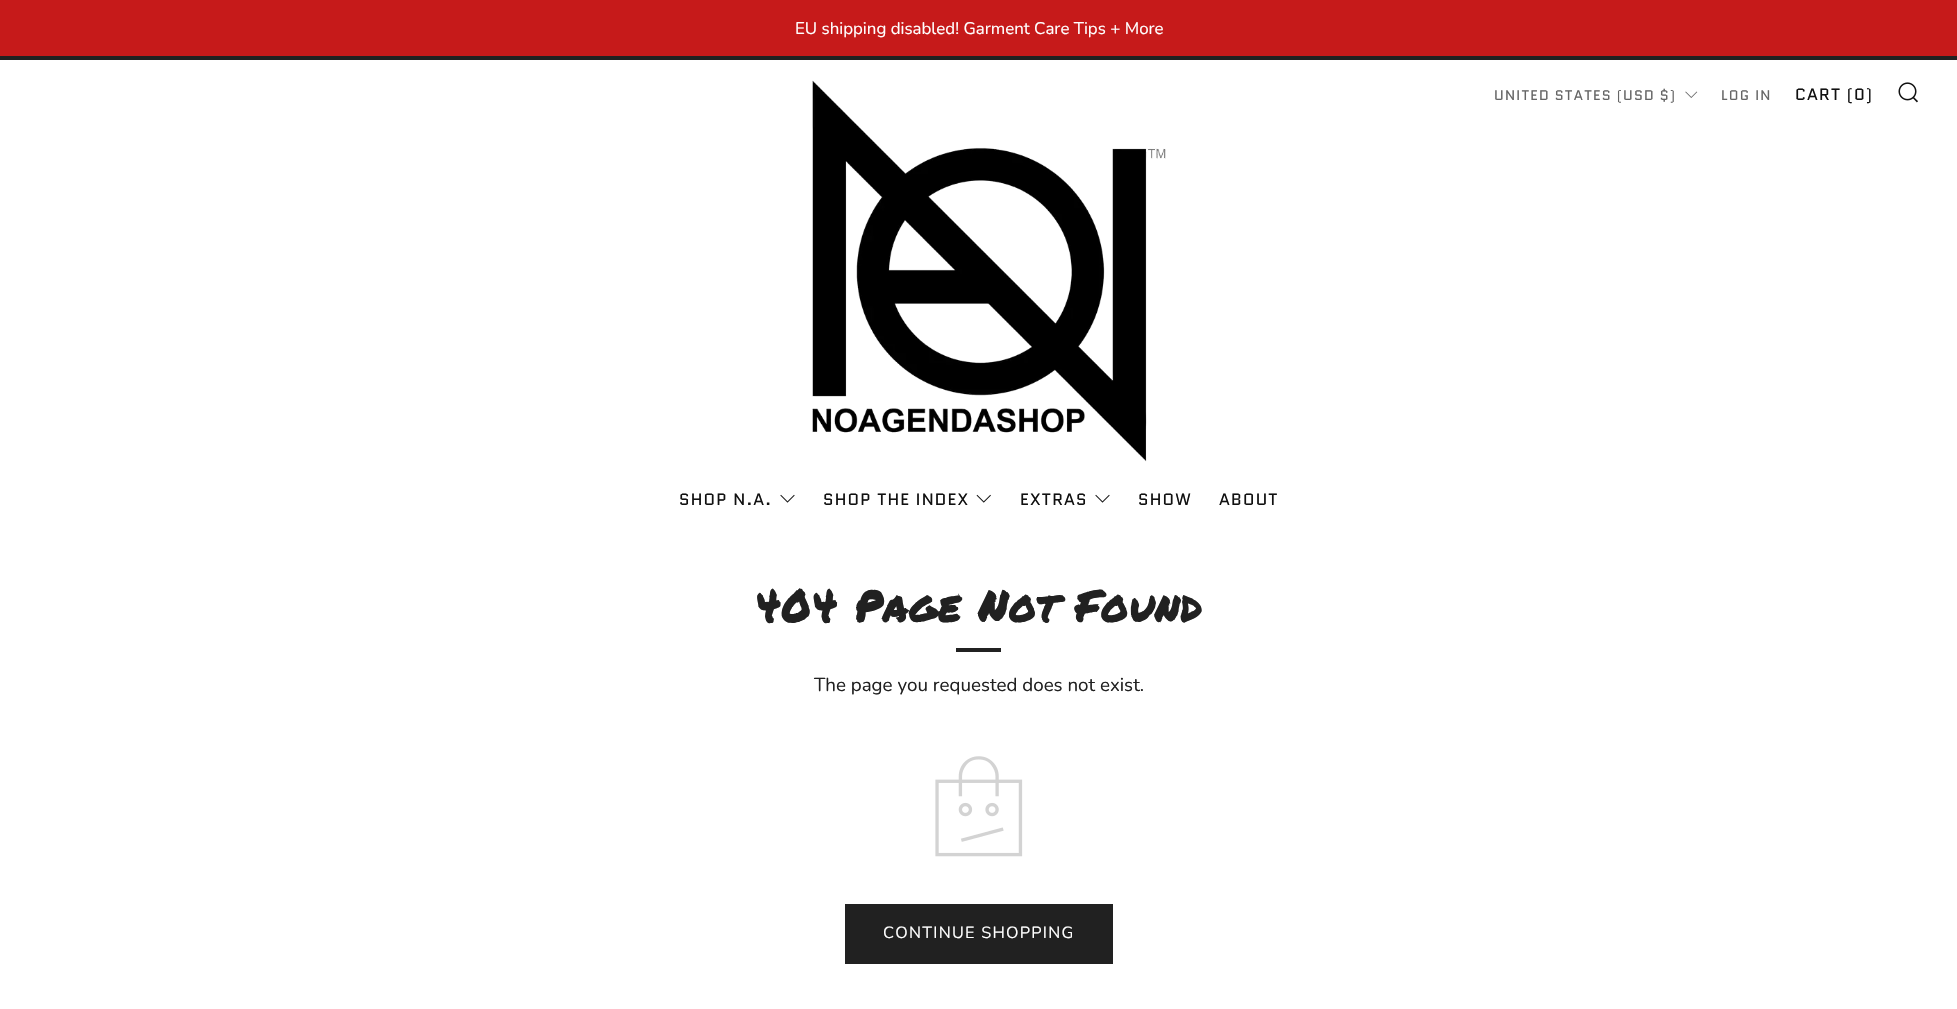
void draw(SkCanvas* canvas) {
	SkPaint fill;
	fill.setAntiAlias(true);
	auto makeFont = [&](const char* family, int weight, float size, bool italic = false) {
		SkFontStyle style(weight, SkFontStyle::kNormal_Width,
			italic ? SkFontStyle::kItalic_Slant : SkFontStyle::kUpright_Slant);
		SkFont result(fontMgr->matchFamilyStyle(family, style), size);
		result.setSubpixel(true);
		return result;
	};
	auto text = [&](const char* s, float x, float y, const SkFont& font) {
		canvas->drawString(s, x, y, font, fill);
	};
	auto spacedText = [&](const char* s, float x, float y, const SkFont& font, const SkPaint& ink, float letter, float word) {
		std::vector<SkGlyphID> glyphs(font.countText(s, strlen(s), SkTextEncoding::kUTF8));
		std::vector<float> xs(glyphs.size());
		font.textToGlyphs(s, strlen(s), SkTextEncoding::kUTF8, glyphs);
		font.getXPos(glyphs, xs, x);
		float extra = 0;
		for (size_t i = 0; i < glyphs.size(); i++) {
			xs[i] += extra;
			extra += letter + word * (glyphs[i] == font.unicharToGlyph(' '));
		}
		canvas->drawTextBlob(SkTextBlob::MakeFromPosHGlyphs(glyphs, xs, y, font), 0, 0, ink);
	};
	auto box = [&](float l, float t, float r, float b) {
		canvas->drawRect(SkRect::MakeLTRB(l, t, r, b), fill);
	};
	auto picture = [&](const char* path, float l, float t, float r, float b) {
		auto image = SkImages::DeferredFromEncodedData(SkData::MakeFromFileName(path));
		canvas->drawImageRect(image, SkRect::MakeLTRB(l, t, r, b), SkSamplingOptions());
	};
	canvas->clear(0xFFFFFFFF);
	fill.setColor(0xFFC61A1A);
	box(0, 0, 1957, 56);
	fill.setColor(0xFF212121);
	box(0, 56, 1957, 60);
	picture("image0.png", 812, 80, 1166, 462);
	picture("image1.png", 1685, 91, 1698, 98);
	picture("image2.png", 1898, 82, 1918, 103);
	picture("image3.png", 780, 494, 795, 503);
	picture("image4.png", 976, 494, 991, 503);
	picture("image3.png", 1095, 494, 1110, 503);
	box(956, 648, 1001, 652);
	picture("image5.png", 935, 756, 1023, 857);
	box(845, 904, 1113, 964);
	auto font1 = makeFont("Nunito", 400, 16.9f);
	fill.setColor(0xFFFFFFFF);
	text("EU shipping disabled! Garment Care Tips + More", 795, 34, font1);
	auto font2 = makeFont("Quantico", 400, 13.75f);
	fill.setColor(0xFF666666);
	spacedText("UNITED STATES (USD $)", 1494, 100, font2, fill, 1.25f, 0);
	spacedText("LOG IN", 1721, 100, font2, fill, 1.25f, 0);
	auto font3 = makeFont("Quantico", 400, 16.25f);
	fill.setColor(0xFF111111);
	spacedText("CART (0)", 1795, 100, font3, fill, 1.25f, 0);
	spacedText("SHOP N.A.", 679, 505, font3, fill, 1.25f, 0);
	spacedText("SHOP THE INDEX", 823, 505, font3, fill, 1.25f, 0);
	spacedText("EXTRAS", 1020, 505, font3, fill, 1.25f, 0);
	spacedText("SHOW", 1138, 505, font3, fill, 1.25f, 0);
	spacedText("ABOUT", 1219, 505, font3, fill, 1.25f, 0);
	auto font4 = makeFont("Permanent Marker", 700, 42.5f);
	fill.setColor(0xFF212121);
	spacedText("404 Page Not Found", 755, 622, font4, fill, 1.25f, 0);
	auto font5 = makeFont("Nunito", 400, 18.75f);
	text("The page you requested does not exist.", 814, 691, font5);
	auto font6 = makeFont("Nunito", 400, 16.25f);
	fill.setColor(0xFFFFFFFF);
	spacedText("CONTINUE SHOPPING", 883, 938, font6, fill, 1.25f, 0);
}
